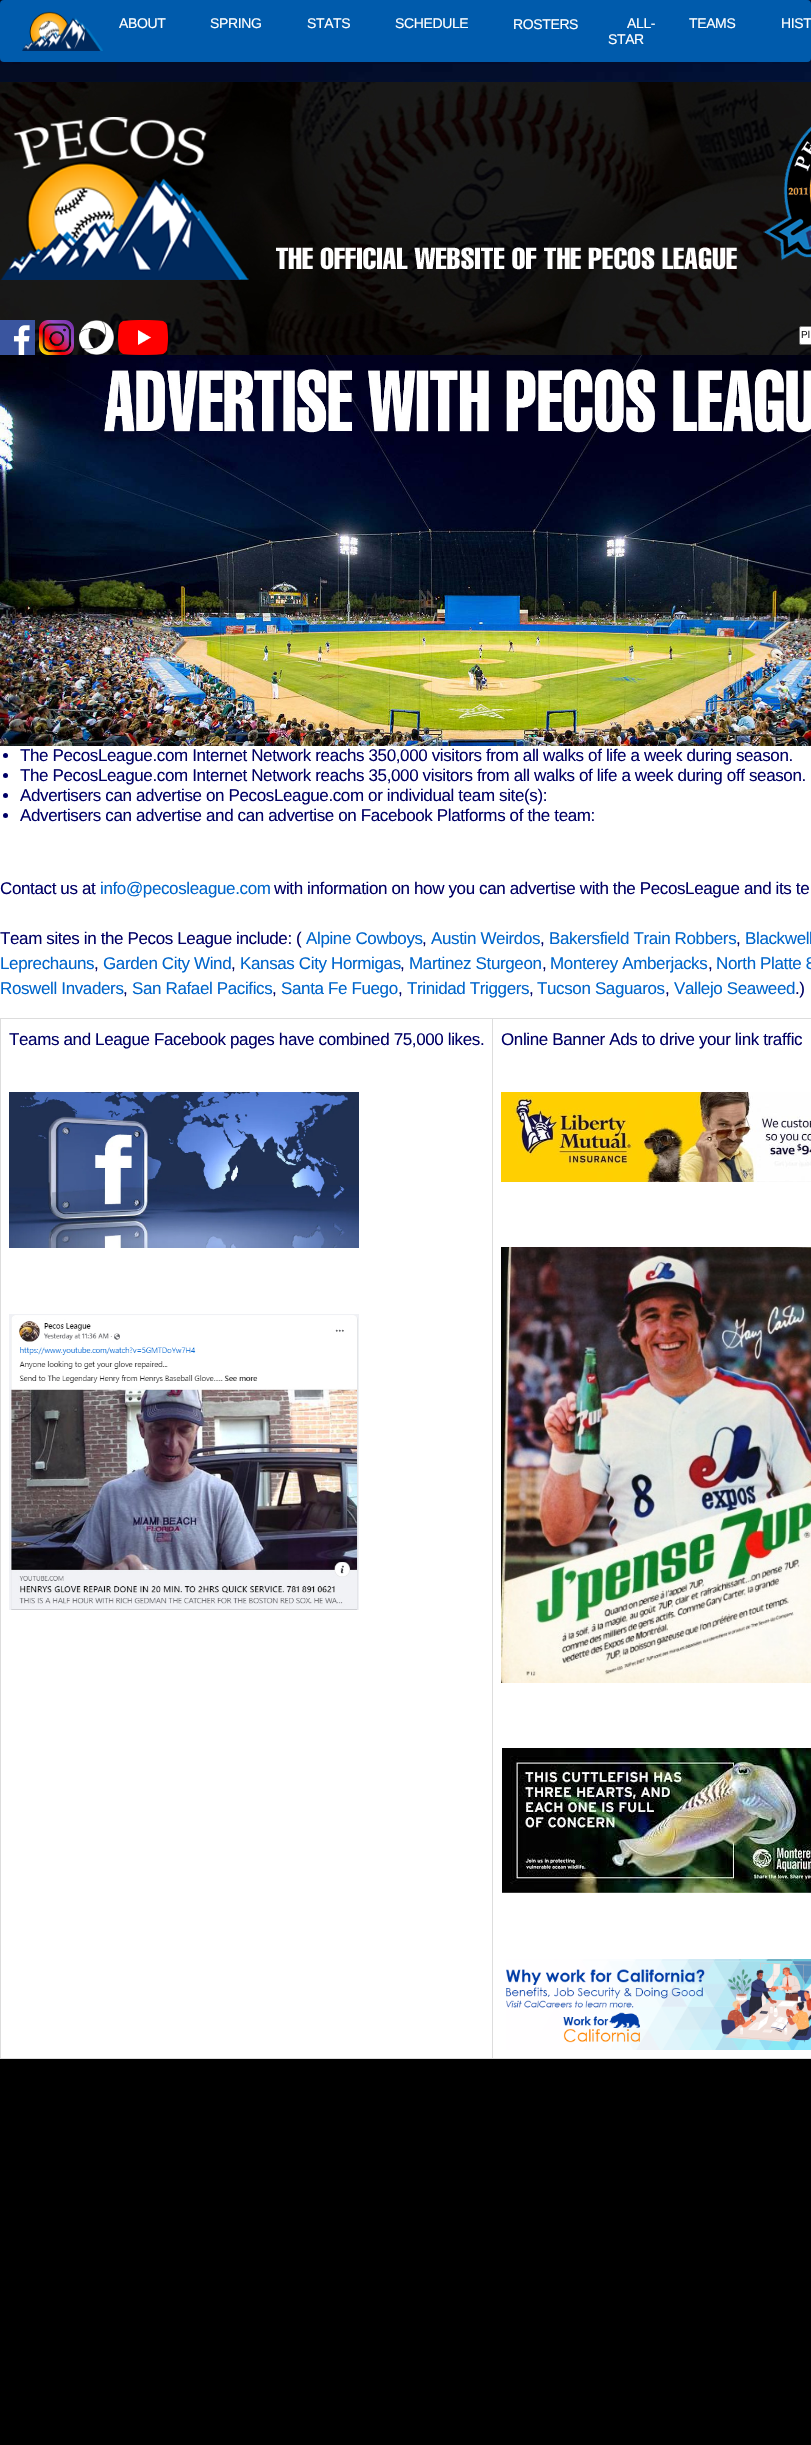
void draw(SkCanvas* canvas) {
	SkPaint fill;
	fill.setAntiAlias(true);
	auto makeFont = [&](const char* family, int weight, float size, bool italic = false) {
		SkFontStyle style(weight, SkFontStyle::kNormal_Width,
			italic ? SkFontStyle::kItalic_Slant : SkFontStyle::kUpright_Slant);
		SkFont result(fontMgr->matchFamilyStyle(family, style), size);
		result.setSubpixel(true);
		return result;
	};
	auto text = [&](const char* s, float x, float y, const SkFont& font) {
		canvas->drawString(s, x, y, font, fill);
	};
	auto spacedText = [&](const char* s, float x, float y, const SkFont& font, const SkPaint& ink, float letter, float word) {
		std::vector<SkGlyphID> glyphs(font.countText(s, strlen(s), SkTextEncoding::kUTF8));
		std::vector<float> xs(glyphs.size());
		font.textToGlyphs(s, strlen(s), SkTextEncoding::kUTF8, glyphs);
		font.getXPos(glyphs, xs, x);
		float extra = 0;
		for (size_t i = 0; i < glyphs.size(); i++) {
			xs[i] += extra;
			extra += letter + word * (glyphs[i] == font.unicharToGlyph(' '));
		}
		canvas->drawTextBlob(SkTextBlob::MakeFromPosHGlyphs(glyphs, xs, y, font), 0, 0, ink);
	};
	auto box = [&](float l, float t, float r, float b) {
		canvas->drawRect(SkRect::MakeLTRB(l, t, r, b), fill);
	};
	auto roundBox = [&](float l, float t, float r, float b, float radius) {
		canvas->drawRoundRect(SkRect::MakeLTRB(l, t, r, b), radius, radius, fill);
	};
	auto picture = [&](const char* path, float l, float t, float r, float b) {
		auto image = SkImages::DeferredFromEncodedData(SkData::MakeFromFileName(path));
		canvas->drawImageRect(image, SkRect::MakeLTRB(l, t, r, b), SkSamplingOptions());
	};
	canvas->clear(0xFF000000);
	picture("image0.png", 0, 0, 811, 82);
	fill.setColor(0xFF005BAC);
	roundBox(0, 0, 811, 62, 4);
	picture("image1.png", 22, 11, 103, 51);
	picture("image2.png", 0, 82, 811, 355);
	picture("image3.png", 0, 117, 811, 280);
	picture("image4.png", 0, 320, 35, 355);
	picture("image5.png", 39, 320, 74, 355);
	picture("image6.png", 79, 320, 114, 355);
	picture("image7.png", 118, 320, 168, 355);
	fill.setColor(0xFFFFFFFF);
	canvas->drawRoundRect(SkRect::MakeLTRB(799.5f, 326.5f, 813.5f, 344.5f), 1.5f, 1.5f, fill);
	fill.setStyle(SkPaint::kStroke_Style);
	fill.setStrokeWidth(1);
	fill.setColor(0xFF767676);
	canvas->drawRoundRect(SkRect::MakeLTRB(799.5f, 326.5f, 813.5f, 344.5f), 1.5f, 1.5f, fill);
	fill.setStyle(SkPaint::kFill_Style);
	fill.setColor(0xFFFFFFFF);
	box(0, 746, 811, 2058);
	picture("image8.png", 0, 355, 811, 746);
	fill.setColor(0xFF000066);
	canvas->drawCircle(5.5f, 755.5f, 2.5f, fill);
	canvas->drawCircle(5.5f, 775.5f, 2.5f, fill);
	canvas->drawCircle(5.5f, 795.5f, 2.5f, fill);
	canvas->drawCircle(5.5f, 815.5f, 2.5f, fill);
	fill.setColor(0xFFDDDDDD);
	box(492, 1018, 811, 1019);
	box(492, 2058, 811, 2059);
	box(492, 1018, 493, 2059);
	box(0, 1018, 493, 1019);
	box(0, 2058, 493, 2059);
	box(0, 1018, 1, 2059);
	picture("image9.png", 9, 1092, 359, 1248);
	picture("image10.png", 9, 1314, 359, 1610);
	picture("image11.png", 501, 1092, 811, 1182);
	picture("image12.png", 501, 1247, 811, 1683);
	picture("image13.png", 502, 1748, 811, 1893);
	picture("image14.png", 506, 1959, 811, 2050);
	auto font1 = makeFont("Liberation Sans", 400, 14);
	fill.setColor(0xFFFFFFFF);
	spacedText("ABOUT", 119, 28, font1, fill, -0.37f, 0);
	spacedText("SPRING", 210, 28, font1, fill, -0.37f, 0);
	spacedText("STATS", 307, 28, font1, fill, -0.37f, 0);
	spacedText("SCHEDULE", 395, 28, font1, fill, -0.37f, 0);
	spacedText("ROSTERS", 513, 29, font1, fill, -0.37f, 0);
	spacedText("ALL-", 627, 28, font1, fill, -0.37f, 0);
	spacedText("STAR", 608, 44, font1, fill, -0.37f, 0);
	spacedText("TEAMS", 689, 28, font1, fill, -0.37f, 0);
	spacedText("HIST", 781, 28, font1, fill, -0.37f, 0);
	auto font2 = makeFont("Liberation Sans", 400, 10);
	fill.setColor(0xFF1D1D1F);
	text("Pl", 801, 338, font2);
	auto font3 = makeFont("Liberation Sans", 400, 17);
	fill.setColor(0xFF000066);
	spacedText("The PecosLeague.com Internet Network reachs 350,000 visitors from all walks of life a week during season.", 20, 761, font3, fill, -0.37f, 0);
	spacedText("The PecosLeague.com Internet Network reachs 35,000 visitors from all walks of life a week during off season.", 20, 781, font3, fill, -0.37f, 0);
	spacedText("Advertisers can advertise on PecosLeague.com or individual team site(s):", 20, 801, font3, fill, -0.37f, 0);
	spacedText("Advertisers can advertise and can advertise on Facebook Platforms of the team:", 20, 821, font3, fill, -0.37f, 0);
	spacedText("Contact us at", 0, 894, font3, fill, -0.37f, 0);
	fill.setColor(0xFF0066CC);
	spacedText("info@pecosleague.com", 100, 894, font3, fill, -0.37f, 0);
	fill.setColor(0xFF000066);
	spacedText("with information on how you can advertise with the PecosLeague and its te", 274, 894, font3, fill, -0.37f, 0);
	spacedText("Team sites in the Pecos League include: (", 0, 944, font3, fill, -0.37f, 0);
	fill.setColor(0xFF0066CC);
	spacedText("Alpine Cowboys", 306, 944, font3, fill, -0.37f, 0);
	fill.setColor(0xFF000066);
	spacedText(",", 422, 944, font3, fill, -0.37f, 0);
	fill.setColor(0xFF0066CC);
	spacedText("Austin Weirdos", 431, 944, font3, fill, -0.37f, 0);
	fill.setColor(0xFF000066);
	spacedText(",", 540, 944, font3, fill, -0.37f, 0);
	fill.setColor(0xFF0066CC);
	spacedText("Bakersfield Train Robbers", 549, 944, font3, fill, -0.37f, 0);
	fill.setColor(0xFF000066);
	spacedText(",", 736, 944, font3, fill, -0.37f, 0);
	fill.setColor(0xFF0066CC);
	spacedText("Blackwell", 745, 944, font3, fill, -0.37f, 0);
	spacedText("Leprechauns", 0, 969, font3, fill, -0.37f, 0);
	fill.setColor(0xFF000066);
	spacedText(",", 94, 969, font3, fill, -0.37f, 0);
	fill.setColor(0xFF0066CC);
	spacedText("Garden City Wind", 103, 969, font3, fill, -0.37f, 0);
	fill.setColor(0xFF000066);
	spacedText(",", 231, 969, font3, fill, -0.37f, 0);
	fill.setColor(0xFF0066CC);
	spacedText("Kansas City Hormigas", 240, 969, font3, fill, -0.37f, 0);
	fill.setColor(0xFF000066);
	spacedText(",", 400, 969, font3, fill, -0.37f, 0);
	fill.setColor(0xFF0066CC);
	spacedText("Martinez Sturgeon", 409, 969, font3, fill, -0.37f, 0);
	fill.setColor(0xFF000066);
	spacedText(",", 542, 969, font3, fill, -0.37f, 0);
	fill.setColor(0xFF0066CC);
	spacedText("Monterey Amberjacks", 550, 969, font3, fill, -0.37f, 0);
	fill.setColor(0xFF000066);
	spacedText(",", 708, 969, font3, fill, -0.37f, 0);
	fill.setColor(0xFF0066CC);
	spacedText("North Platte 8", 716, 969, font3, fill, -0.37f, 0);
	spacedText("Roswell Invaders", 0, 994, font3, fill, -0.37f, 0);
	fill.setColor(0xFF000066);
	spacedText(",", 123, 994, font3, fill, -0.37f, 0);
	fill.setColor(0xFF0066CC);
	spacedText("San Rafael Pacifics", 132, 994, font3, fill, -0.37f, 0);
	fill.setColor(0xFF000066);
	spacedText(",", 272, 994, font3, fill, -0.37f, 0);
	fill.setColor(0xFF0066CC);
	spacedText("Santa Fe Fuego", 281, 994, font3, fill, -0.37f, 0);
	fill.setColor(0xFF000066);
	spacedText(",", 398, 994, font3, fill, -0.37f, 0);
	fill.setColor(0xFF0066CC);
	spacedText("Trinidad Triggers", 407, 994, font3, fill, -0.37f, 0);
	fill.setColor(0xFF000066);
	spacedText(",", 529, 994, font3, fill, -0.37f, 0);
	fill.setColor(0xFF0066CC);
	spacedText("Tucson Saguaros", 537, 994, font3, fill, -0.37f, 0);
	fill.setColor(0xFF000066);
	spacedText(",", 665, 994, font3, fill, -0.37f, 0);
	fill.setColor(0xFF0066CC);
	spacedText("Vallejo Seaweed", 674, 994, font3, fill, -0.37f, 0);
	fill.setColor(0xFF000066);
	spacedText(".)", 795, 994, font3, fill, -0.37f, 0);
	spacedText("Teams and League Facebook pages have combined 75,000 likes.", 9, 1045, font3, fill, -0.37f, 0);
	spacedText("Online Banner Ads to drive your link traffic", 501, 1045, font3, fill, -0.37f, 0);
}
